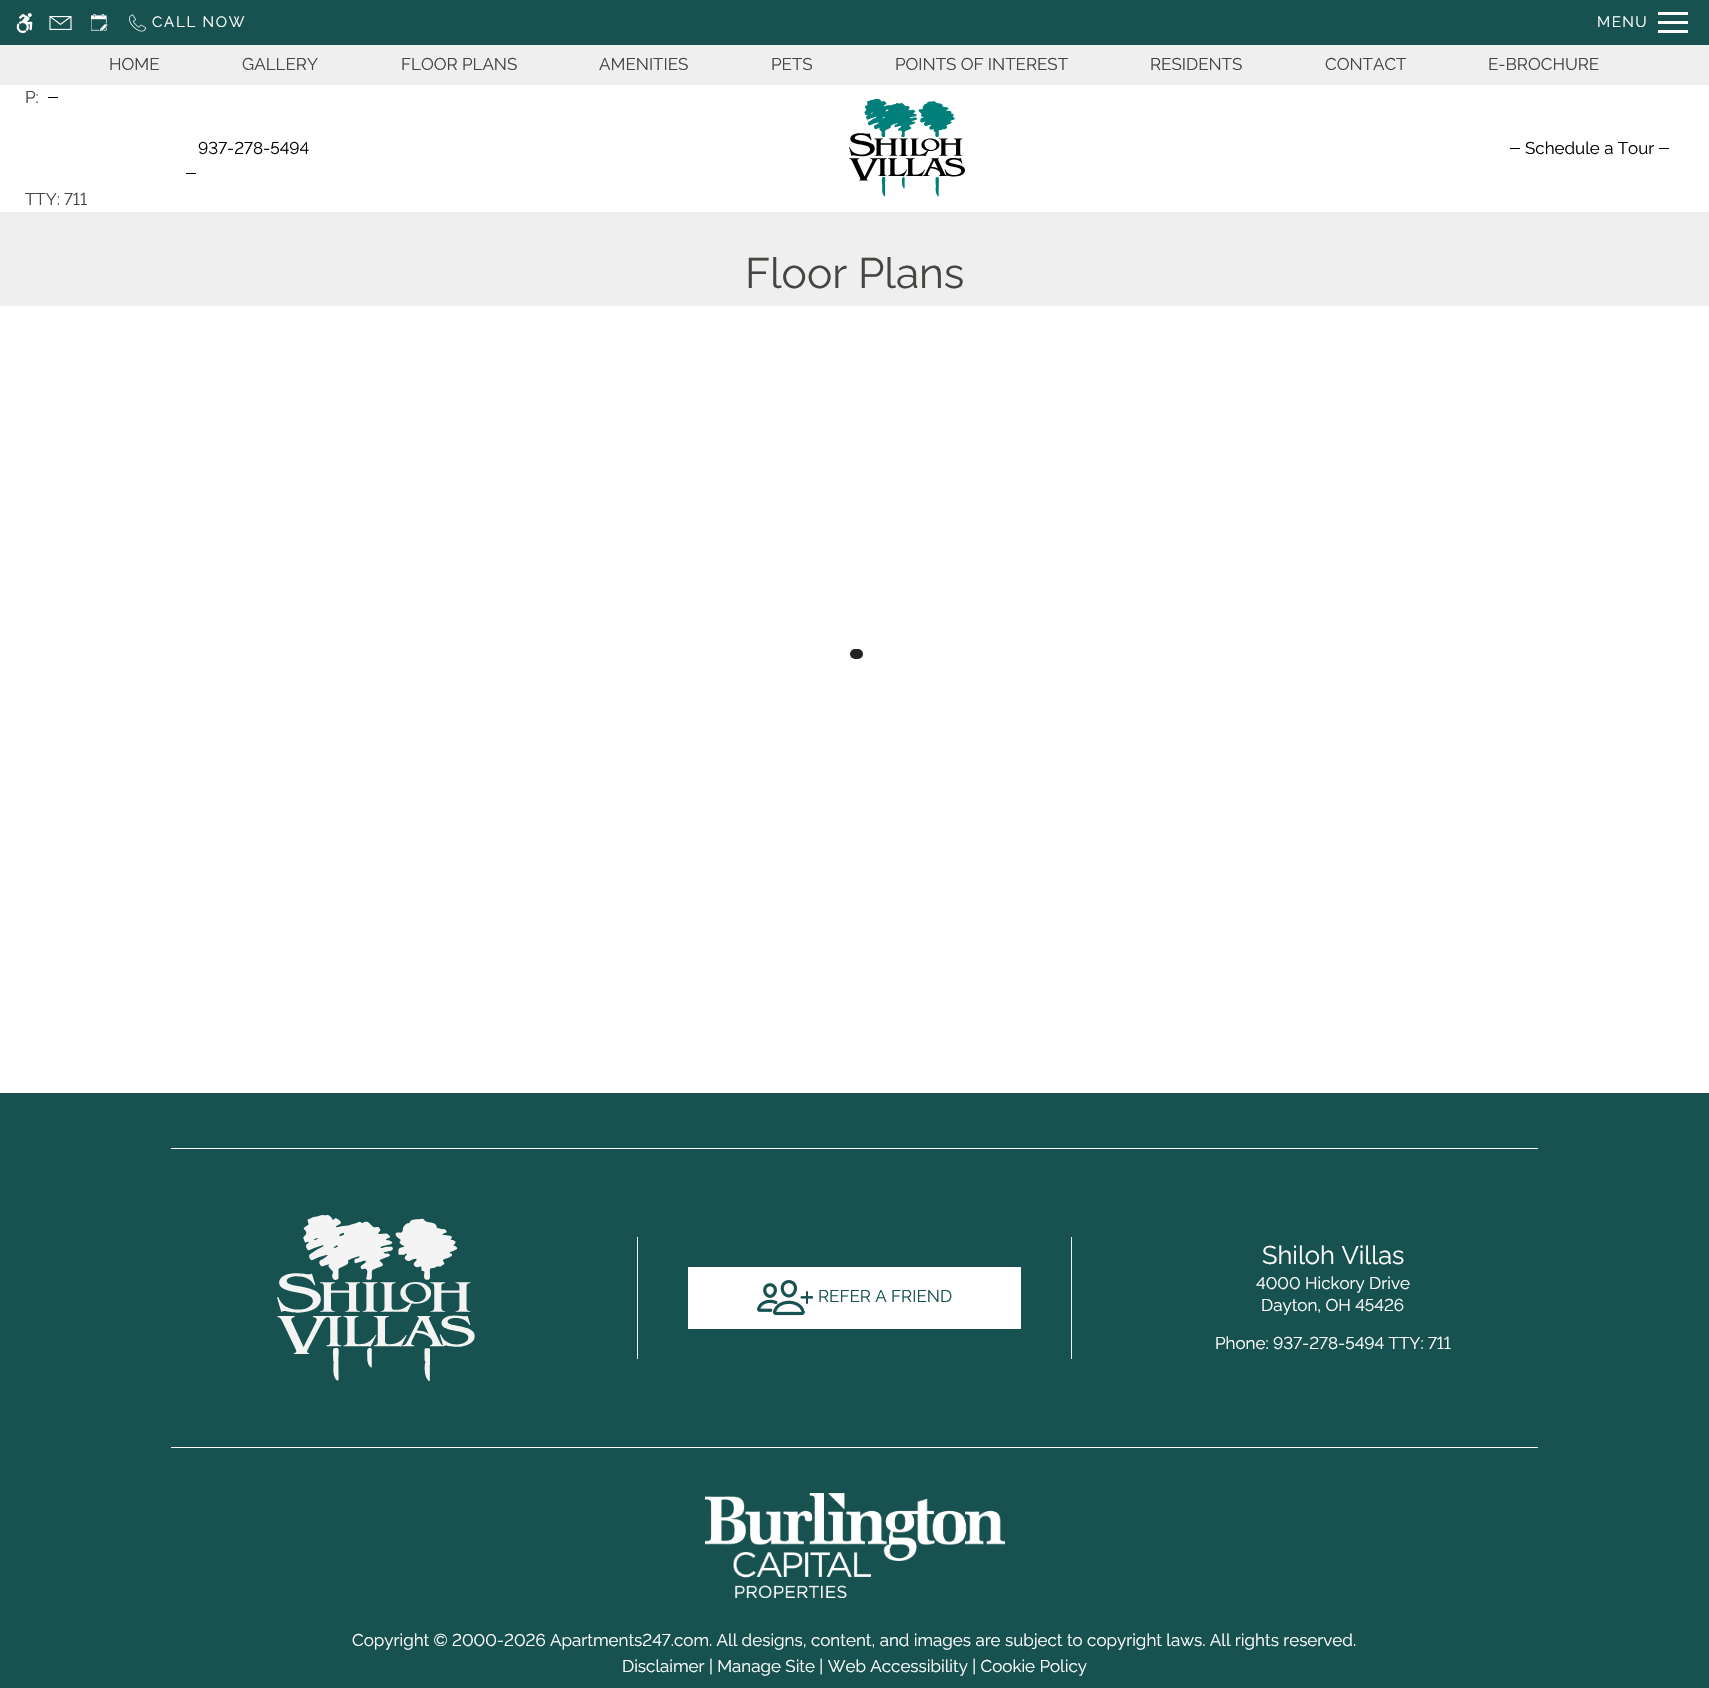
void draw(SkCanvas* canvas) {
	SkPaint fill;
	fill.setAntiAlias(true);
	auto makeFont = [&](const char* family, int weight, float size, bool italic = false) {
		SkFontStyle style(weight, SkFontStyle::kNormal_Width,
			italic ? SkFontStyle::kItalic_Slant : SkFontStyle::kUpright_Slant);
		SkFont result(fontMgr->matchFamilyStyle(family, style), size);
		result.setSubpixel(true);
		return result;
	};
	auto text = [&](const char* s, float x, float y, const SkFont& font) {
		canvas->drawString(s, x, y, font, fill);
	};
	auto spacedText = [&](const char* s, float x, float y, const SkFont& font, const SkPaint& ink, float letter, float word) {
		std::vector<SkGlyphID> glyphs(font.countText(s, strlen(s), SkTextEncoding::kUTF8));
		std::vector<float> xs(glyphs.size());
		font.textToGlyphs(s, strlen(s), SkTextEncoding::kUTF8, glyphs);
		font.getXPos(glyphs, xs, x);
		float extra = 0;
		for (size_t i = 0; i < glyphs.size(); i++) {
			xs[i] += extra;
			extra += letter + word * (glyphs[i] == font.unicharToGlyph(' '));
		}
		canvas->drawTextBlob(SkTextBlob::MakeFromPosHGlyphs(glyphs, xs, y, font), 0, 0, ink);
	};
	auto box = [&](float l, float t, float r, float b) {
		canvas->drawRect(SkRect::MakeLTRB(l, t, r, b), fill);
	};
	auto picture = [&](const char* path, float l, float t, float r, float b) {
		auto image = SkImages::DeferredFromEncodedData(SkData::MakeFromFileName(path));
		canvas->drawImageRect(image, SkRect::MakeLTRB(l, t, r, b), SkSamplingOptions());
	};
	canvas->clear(0xFFEFEFEF);
	fill.setColor(0xFF185250);
	box(0, 0, 1709, 45);
	picture("image0.png", 16, 13, 33, 33);
	picture("image1.png", 49, 16, 72, 30);
	picture("image2.png", 91, 14, 108, 31);
	picture("image3.png", 129, 14, 146, 32);
	fill.setColor(0xFFFFFFFF);
	box(1658, 12, 1688, 15);
	box(1658, 21, 1688, 24);
	box(1658, 30, 1688, 33);
	box(0, 85, 1709, 212);
	fill.setColor(0xFF000000);
	box(48, 97, 58, 98);
	box(186, 173, 196, 174);
	picture("image4.png", 849, 99, 965, 197);
	box(1510, 148, 1520, 149);
	box(1659, 148, 1669, 149);
	fill.setColor(0xFFFFFFFF);
	box(0, 306, 1709, 1093);
	fill.setStyle(SkPaint::kStroke_Style);
	fill.setStrokeWidth(10);
	fill.setStrokeCap(SkPaint::kRound_Cap);
	fill.setColor(0xFF222222);
	canvas->drawPath(SkPathBuilder().moveTo(855, 654).lineTo(858, 654).detach(), fill);
	fill.setStyle(SkPaint::kFill_Style);
	fill.setColor(0xFF185250);
	box(0, 1093, 1709, 1688);
	fill.setColor(0xFFFFFFFF);
	box(171, 1148, 1538, 1149);
	box(171, 1447, 1538, 1448);
	picture("image5.png", 277, 1215, 475, 1382);
	box(1071, 1237, 1072, 1359);
	box(637, 1237, 638, 1359);
	box(688, 1267, 1021, 1329);
	picture("image6.png", 757, 1280, 813, 1316);
	picture("image7.png", 705, 1493, 1005, 1598);
	auto font1 = makeFont("Raleway", 400, 15);
	spacedText("CALL NOW", 152, 27, font1, fill, 1.75f, 0);
	spacedText("MENU", 1597, 27, font1, fill, 1.5f, 0);
	auto font2 = makeFont("Raleway", 400, 17);
	fill.setColor(0xFF454541);
	text("HOME", 109, 70, font2);
	text("GALLERY", 242, 70, font2);
	text("FLOOR PLANS", 401, 70, font2);
	text("AMENITIES", 599, 70, font2);
	text("PETS", 771, 70, font2);
	text("POINTS OF INTEREST", 895, 70, font2);
	text("RESIDENTS", 1150, 70, font2);
	text("CONTACT", 1325, 70, font2);
	text("E-BROCHURE", 1488, 70, font2);
	text("P:", 25, 103, font2);
	auto font3 = makeFont("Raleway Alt", 400, 17);
	fill.setColor(0xFF000000);
	text("937-278-5494", 198, 154, font3);
	fill.setColor(0xFF454541);
	text("TTY:", 25, 205, font2);
	text("711", 64, 205, font3);
	fill.setColor(0xFF000000);
	text("Schedule a Tour", 1525, 154, font2);
	auto font4 = makeFont("Raleway", 400, 42.5f);
	fill.setColor(0xFF454541);
	text("Floor Plans", 745, 288, font4);
	fill.setColor(0xFF185250);
	text("REFER A FRIEND", 818, 1302, font2);
	auto font5 = makeFont("Raleway", 400, 25.5f);
	fill.setColor(0xFFFFFFFF);
	text("Shiloh Villas", 1262, 1264, font5);
	text("4000 Hickory Drive", 1256, 1289, font3);
	text("Dayton, OH 45426", 1261, 1311, font3);
	text("Phone: 937-278-5494 TTY: 711", 1215, 1349, font3);
	text("Copyright © 2000-2026 Apartments247.com", 352, 1646, font3);
	text(". All designs, content, and images are subject to copyright laws. All rights reserved.", 709, 1646, font2);
	text("Disclaimer | Manage Site | Web Accessibility | Cookie Policy", 622, 1672, font2);
}
